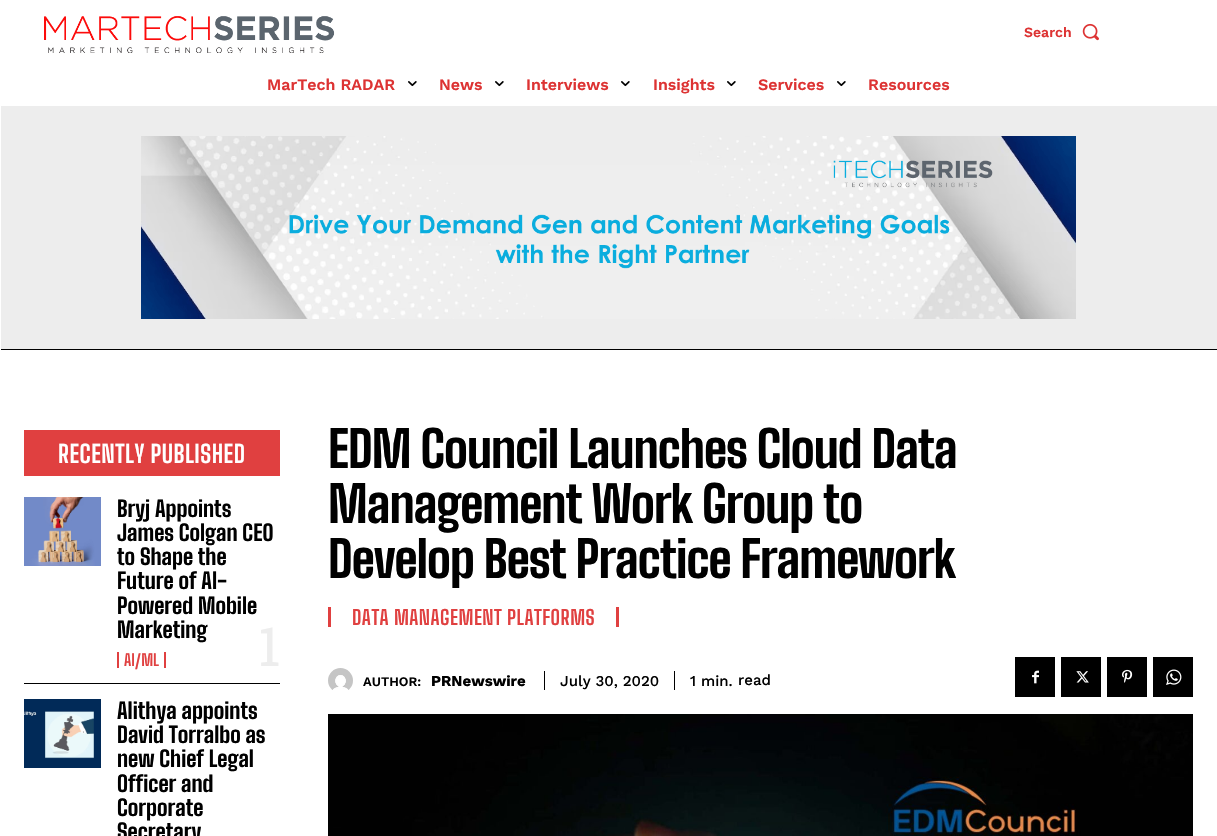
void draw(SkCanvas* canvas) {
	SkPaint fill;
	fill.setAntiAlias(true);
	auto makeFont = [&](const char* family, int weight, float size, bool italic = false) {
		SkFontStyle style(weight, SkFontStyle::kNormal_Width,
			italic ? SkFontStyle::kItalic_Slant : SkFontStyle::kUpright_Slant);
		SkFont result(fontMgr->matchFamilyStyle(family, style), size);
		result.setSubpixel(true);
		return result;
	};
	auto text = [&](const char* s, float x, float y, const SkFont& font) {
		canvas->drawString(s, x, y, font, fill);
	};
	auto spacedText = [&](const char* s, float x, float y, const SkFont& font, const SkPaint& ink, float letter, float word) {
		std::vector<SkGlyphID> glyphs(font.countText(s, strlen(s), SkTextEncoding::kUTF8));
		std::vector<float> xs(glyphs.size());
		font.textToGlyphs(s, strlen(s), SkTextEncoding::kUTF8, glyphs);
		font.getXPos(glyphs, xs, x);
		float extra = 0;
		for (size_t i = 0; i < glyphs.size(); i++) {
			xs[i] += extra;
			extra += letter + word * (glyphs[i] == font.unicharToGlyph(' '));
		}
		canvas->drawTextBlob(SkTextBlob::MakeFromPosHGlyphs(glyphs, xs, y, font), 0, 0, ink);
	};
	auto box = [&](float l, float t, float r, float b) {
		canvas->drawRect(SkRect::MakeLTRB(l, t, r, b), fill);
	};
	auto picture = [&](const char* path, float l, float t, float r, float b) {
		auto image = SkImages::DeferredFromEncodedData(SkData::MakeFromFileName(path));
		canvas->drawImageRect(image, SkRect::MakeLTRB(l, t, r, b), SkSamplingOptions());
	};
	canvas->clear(0xFFFFFFFF);
	picture("image0.png", 44, 16, 335, 53);
	picture("image1.png", 1082, 23, 1099, 41);
	picture("image2.png", 408, 81, 417, 87);
	picture("image2.png", 495, 81, 504, 87);
	picture("image2.png", 621, 81, 630, 87);
	picture("image2.png", 727, 81, 736, 87);
	picture("image2.png", 837, 81, 846, 87);
	fill.setColor(0xFFEDEDED);
	box(1, 106, 1217, 349);
	fill.setColor(0xFF000000);
	box(1, 349, 1217, 350);
	picture("image3.png", 141, 136, 1076, 319);
	fill.setColor(0xFFE04040);
	box(24, 430, 280, 476);
	fill.setColor(0xFF000000);
	box(24, 683, 280, 684);
	picture("image4.png", 24, 497, 101, 566);
	fill.setColor(0xFFE04040);
	box(164, 652, 166, 668);
	box(117, 652, 119, 668);
	picture("image5.png", 24, 699, 101, 768);
	box(616, 607, 619, 627);
	box(328, 607, 331, 627);
	picture("image6.png", 328, 668, 353, 690);
	fill.setColor(0xFF000000);
	box(674, 671, 675, 690);
	box(544, 671, 545, 690);
	box(1015, 657, 1055, 697);
	picture("image7.png", 1032, 670, 1039, 684);
	box(1061, 657, 1101, 697);
	picture("image8.png", 1076, 671, 1089, 683);
	box(1107, 657, 1147, 697);
	picture("image9.png", 1122, 669, 1133, 683);
	box(1153, 657, 1193, 697);
	picture("image10.png", 1166, 669, 1182, 685);
	picture("image11.png", 328, 714, 1193, 836);
	auto font1 = makeFont("Work Sans", 600, 14);
	fill.setColor(0xFFDD3333);
	text("Search", 1024, 37, font1);
	auto font2 = makeFont("Work Sans", 600, 16);
	text("MarTech RADAR", 267, 90, font2);
	text("News", 439, 90, font2);
	text("Interviews", 526, 90, font2);
	text("Insights", 653, 90, font2);
	text("Services", 758, 90, font2);
	text("Resources", 868, 90, font2);
	auto font3 = makeFont("Big Shoulders Text", 700, 24);
	fill.setColor(0xFFFFFFFF);
	spacedText("RECENTLY PUBLISHED", 58, 463, font3, fill, 0.5f, 0);
	auto font4 = makeFont("Big Shoulders Text", 800, 22);
	fill.setColor(0xFF000000);
	text("Bryj Appoints", 117, 517, font4);
	text("James Colgan CEO", 117, 541, font4);
	text("to Shape the", 117, 565, font4);
	text("Future of AI-", 117, 589, font4);
	text("Powered Mobile", 117, 614, font4);
	text("Marketing", 117, 638, font4);
	auto font5 = makeFont("Big Shoulders Text", 700, 16);
	fill.setColor(0xFFE04040);
	text("AI/ML", 124, 666, font5);
	auto font6 = makeFont("Roboto Slab", 400, 54);
	fill.setColor(0xFFEDEDED);
	text("1", 258, 666, font6);
	fill.setColor(0xFF000000);
	text("Alithya appoints", 117, 719, font4);
	text("David Torralbo as", 117, 743, font4);
	text("new Chief Legal", 117, 767, font4);
	text("Officer and", 117, 792, font4);
	text("Corporate", 117, 816, font4);
	text("Secretary", 117, 840, font4);
	auto font7 = makeFont("Big Shoulders Text", 800, 50);
	spacedText("EDM Council Launches Cloud Data", 328, 468, font7, fill, -1, 0);
	spacedText("Management Work Group to", 328, 523, font7, fill, -1, 0);
	spacedText("Develop Best Practice Framework", 328, 578, font7, fill, -1, 0);
	auto font8 = makeFont("Big Shoulders Text", 700, 20);
	fill.setColor(0xFFE04040);
	spacedText("DATA MANAGEMENT PLATFORMS", 352, 625, font8, fill, 0.5f, 0);
	auto font9 = makeFont("Work Sans", 600, 13);
	fill.setColor(0xFF000000);
	text("AUTHOR:", 363, 686, font9);
	auto font10 = makeFont("Work Sans", 700, 15);
	text("PRNewswire", 431, 686, font10);
	auto font11 = makeFont("Work Sans", 500, 15);
	text("July 30, 2020", 560, 686, font11);
	text("1 min.", 690, 686, font11);
	text("read", 738, 685, font11);
}
